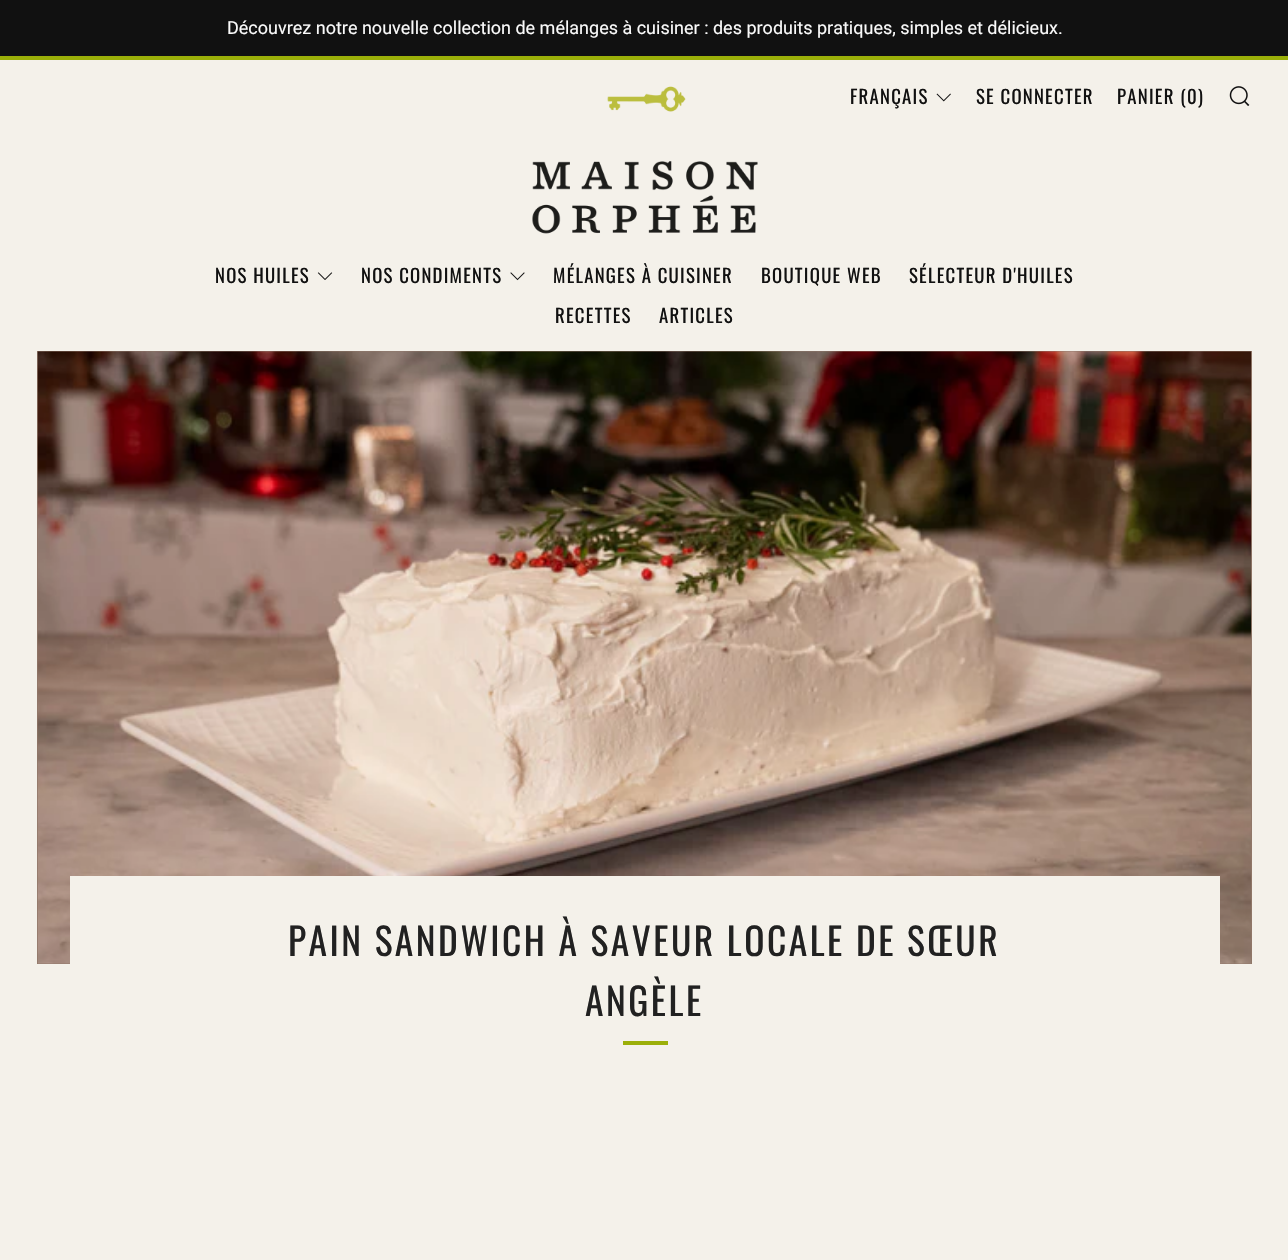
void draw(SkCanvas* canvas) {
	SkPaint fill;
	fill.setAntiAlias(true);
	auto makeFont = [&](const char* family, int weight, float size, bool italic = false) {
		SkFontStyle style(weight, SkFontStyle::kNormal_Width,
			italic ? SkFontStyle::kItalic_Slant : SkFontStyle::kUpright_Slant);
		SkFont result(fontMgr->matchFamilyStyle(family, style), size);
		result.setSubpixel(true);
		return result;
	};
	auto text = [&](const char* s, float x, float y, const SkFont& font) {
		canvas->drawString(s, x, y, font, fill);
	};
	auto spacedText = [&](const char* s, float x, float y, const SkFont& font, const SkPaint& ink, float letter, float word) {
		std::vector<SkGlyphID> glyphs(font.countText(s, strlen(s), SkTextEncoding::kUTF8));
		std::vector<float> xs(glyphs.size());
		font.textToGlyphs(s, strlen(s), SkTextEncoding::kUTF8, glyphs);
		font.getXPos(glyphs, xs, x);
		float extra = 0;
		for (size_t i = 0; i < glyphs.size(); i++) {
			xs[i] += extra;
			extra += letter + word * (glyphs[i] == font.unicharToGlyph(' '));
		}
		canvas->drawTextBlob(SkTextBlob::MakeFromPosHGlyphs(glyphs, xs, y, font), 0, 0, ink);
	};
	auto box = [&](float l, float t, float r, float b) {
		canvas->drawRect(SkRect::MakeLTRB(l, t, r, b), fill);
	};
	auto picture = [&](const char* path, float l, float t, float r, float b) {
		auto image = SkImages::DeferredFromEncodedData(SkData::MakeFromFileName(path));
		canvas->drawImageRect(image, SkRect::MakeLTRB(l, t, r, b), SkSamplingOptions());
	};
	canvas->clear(0xFFF4F1EA);
	fill.setColor(0xFF111111);
	box(0, 0, 1288, 56);
	fill.setColor(0xFF9BAF09);
	box(0, 56, 1288, 60);
	picture("image0.png", 532, 86, 758, 234);
	picture("image1.png", 936, 93, 951, 102);
	picture("image2.png", 1229, 86, 1250, 106);
	picture("image3.png", 317, 272, 333, 280);
	picture("image4.png", 510, 272, 525, 281);
	fill.setColor(0xFF907768);
	box(37, 351, 1252, 964);
	picture("image5.png", 37, 351, 1252, 964);
	fill.setColor(0xFFF4F1EA);
	box(70, 876, 1220, 964);
	fill.setColor(0xFF9BAF09);
	box(623, 1041, 668, 1045);
	auto font1 = makeFont("Roboto", 400, 18);
	fill.setColor(0xFFFAFAFA);
	text("Découvrez notre nouvelle collection de mélanges à cuisiner : des produits pratiques, simples et délicieux.", 227, 34, font1);
	auto font2 = makeFont("Oswald", 400, 18.75f);
	fill.setColor(0xFF111111);
	spacedText("FRANÇAIS", 850, 104, font2, fill, 1.25f, 0);
	spacedText("SE CONNECTER", 976, 104, font2, fill, 1.25f, 0);
	spacedText("PANIER (0)", 1117, 104, font2, fill, 1.25f, 0);
	spacedText("NOS HUILES", 215, 283, font2, fill, 1.25f, 0);
	spacedText("NOS CONDIMENTS", 361, 283, font2, fill, 1.25f, 0);
	spacedText("MÉLANGES À CUISINER", 553, 283, font2, fill, 1.25f, 0);
	spacedText("BOUTIQUE WEB", 761, 283, font2, fill, 1.25f, 0);
	spacedText("SÉLECTEUR D'HUILES", 909, 283, font2, fill, 1.25f, 0);
	spacedText("RECETTES", 555, 323, font2, fill, 1.25f, 0);
	spacedText("ARTICLES", 659, 323, font2, fill, 1.25f, 0);
	auto font3 = makeFont("Oswald", 400, 37.5f);
	fill.setColor(0xFF212121);
	spacedText("PAIN SANDWICH À SAVEUR LOCALE DE SŒUR", 288, 956, font3, fill, 2.5f, 0);
	spacedText("ANGÈLE", 585, 1016, font3, fill, 2.5f, 0);
}
